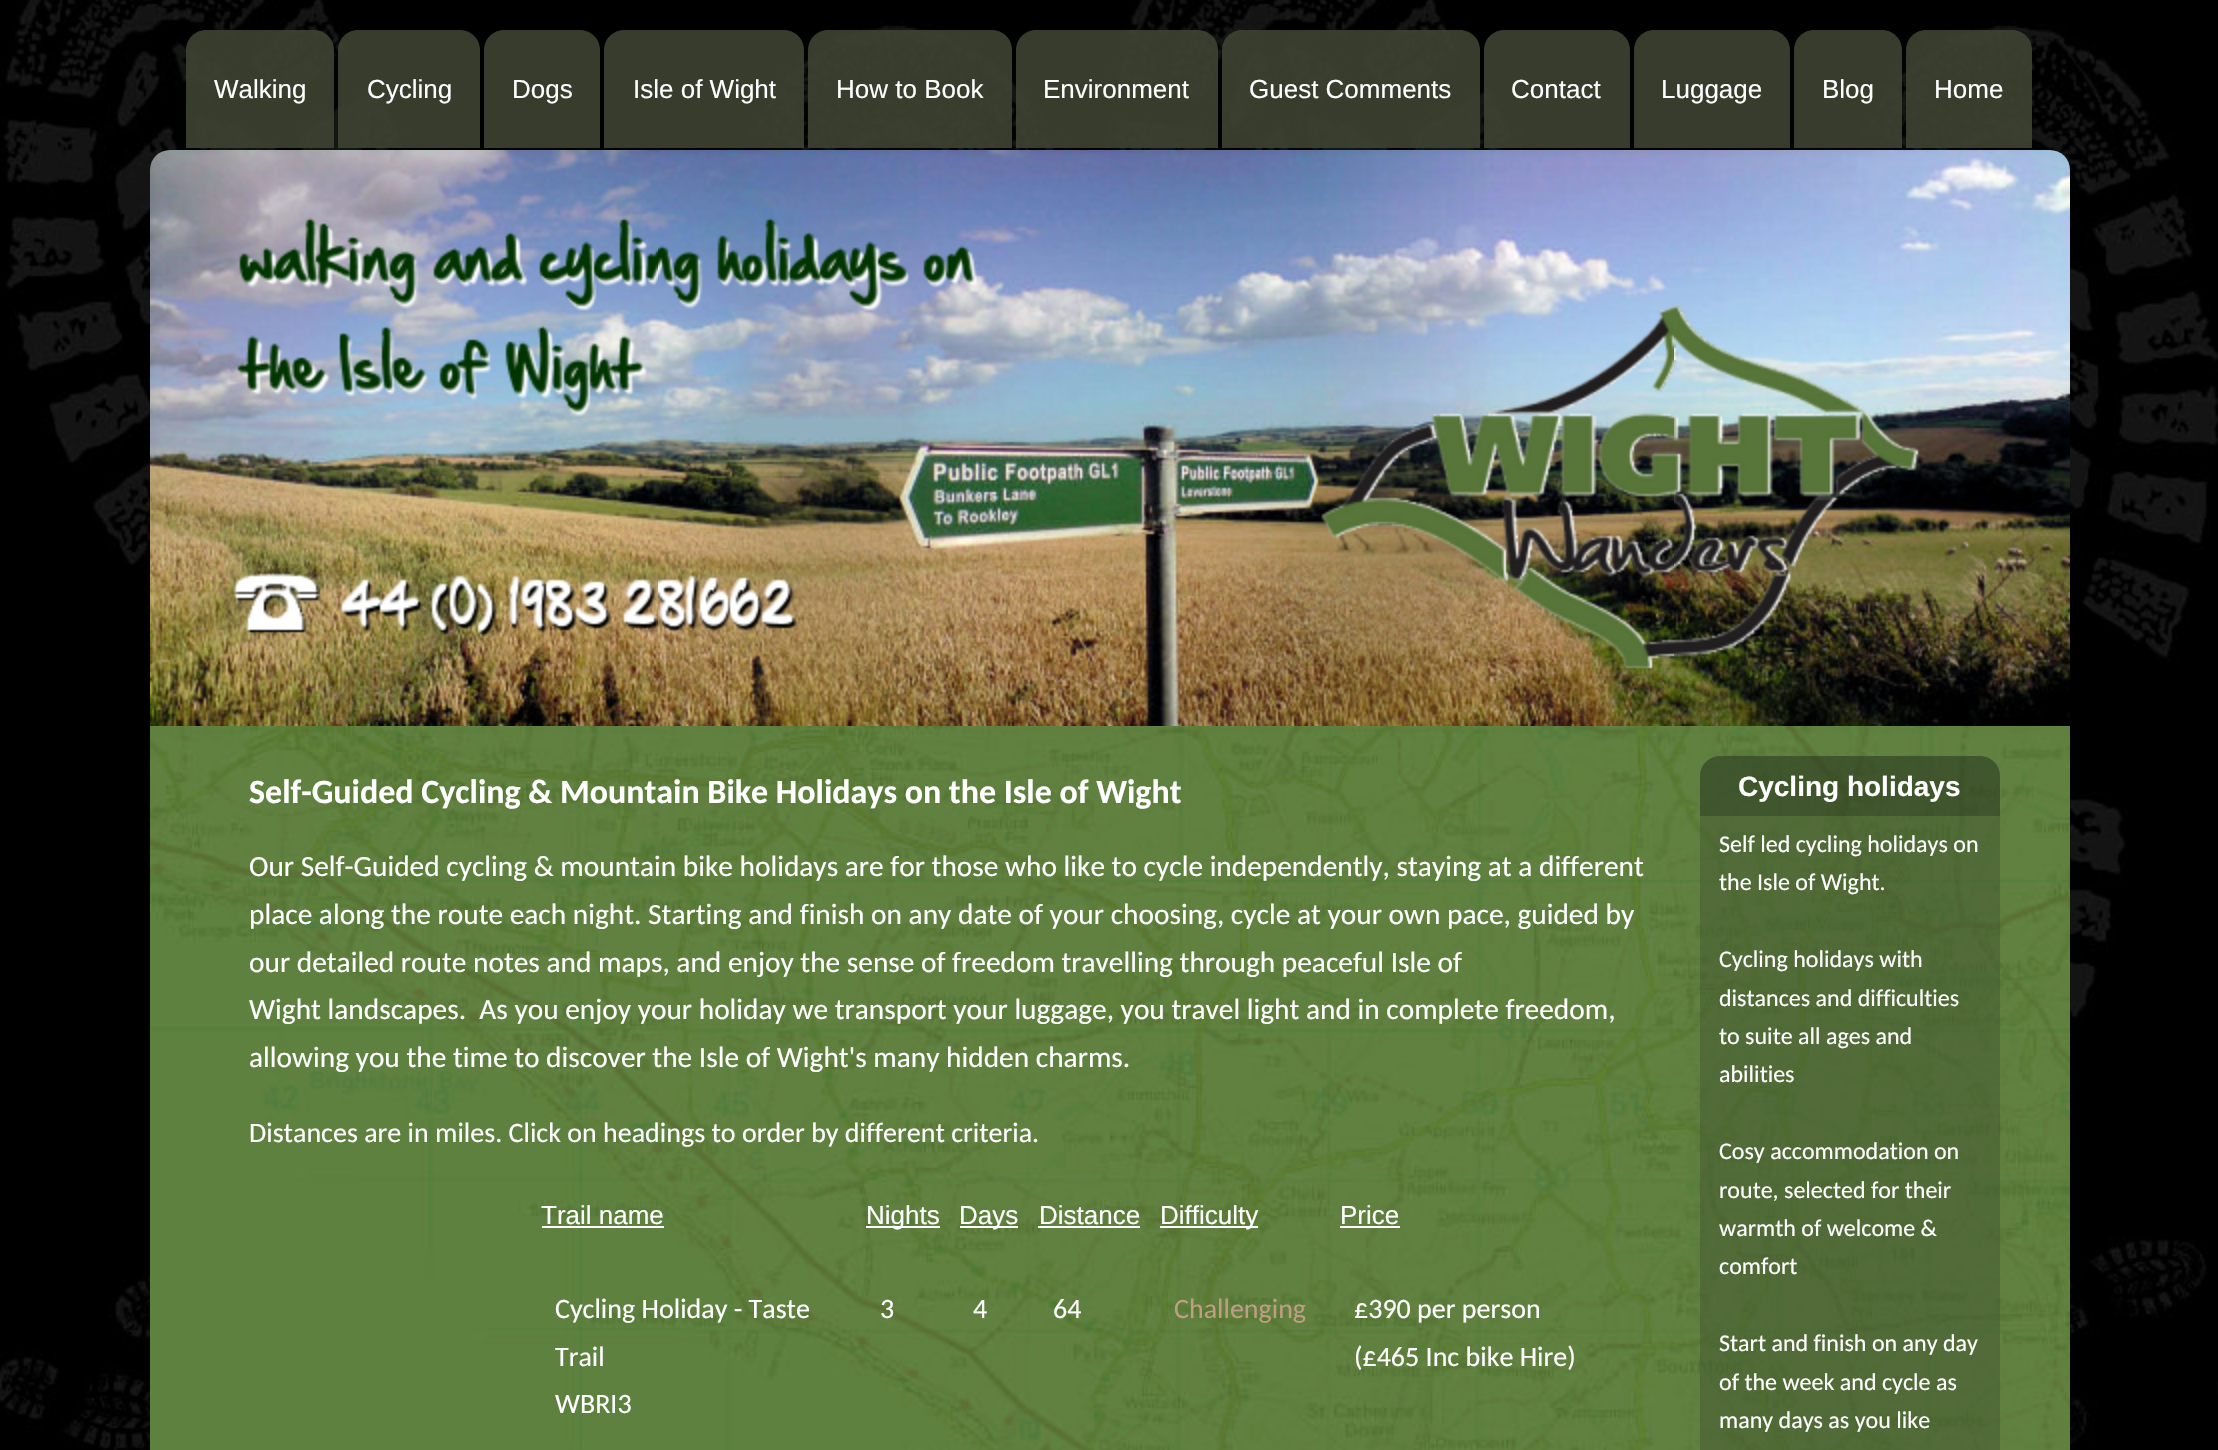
void draw(SkCanvas* canvas) {
	SkPaint fill;
	fill.setAntiAlias(true);
	auto makeFont = [&](const char* family, int weight, float size, bool italic = false) {
		SkFontStyle style(weight, SkFontStyle::kNormal_Width,
			italic ? SkFontStyle::kItalic_Slant : SkFontStyle::kUpright_Slant);
		SkFont result(fontMgr->matchFamilyStyle(family, style), size);
		result.setSubpixel(true);
		return result;
	};
	auto text = [&](const char* s, float x, float y, const SkFont& font) {
		canvas->drawString(s, x, y, font, fill);
	};
	auto box = [&](float l, float t, float r, float b) {
		canvas->drawRect(SkRect::MakeLTRB(l, t, r, b), fill);
	};
	auto picture = [&](const char* path, float l, float t, float r, float b) {
		auto image = SkImages::DeferredFromEncodedData(SkData::MakeFromFileName(path));
		canvas->drawImageRect(image, SkRect::MakeLTRB(l, t, r, b), SkSamplingOptions());
	};
	canvas->clear(0xFFFFFFFF);
	picture("image0.png", 0, 0, 2218, 1450);
	fill.setColor(0xE63D4331);
	canvas->drawPath(SkPathBuilder().moveTo(206, 30).lineTo(314, 30).cubicTo(325, 30, 334, 39, 334, 50).lineTo(334, 148).lineTo(186, 148).lineTo(186, 50).cubicTo(186, 39, 195, 30, 206, 30).close().detach(), fill);
	canvas->drawPath(SkPathBuilder().moveTo(358, 30).lineTo(460, 30).cubicTo(471, 30, 480, 39, 480, 50).lineTo(480, 148).lineTo(338, 148).lineTo(338, 50).cubicTo(338, 39, 347, 30, 358, 30).close().detach(), fill);
	fill.setColor(0xFF373C2C);
	canvas->drawPath(SkPathBuilder().moveTo(504, 30).lineTo(580, 30).cubicTo(591, 30, 600, 39, 600, 50).lineTo(600, 148).lineTo(484, 148).lineTo(484, 50).cubicTo(484, 39, 493, 30, 504, 30).close().detach(), fill);
	fill.setColor(0xE63D4331);
	canvas->drawPath(SkPathBuilder().moveTo(624, 30).lineTo(784, 30).cubicTo(795, 30, 804, 39, 804, 50).lineTo(804, 148).lineTo(604, 148).lineTo(604, 50).cubicTo(604, 39, 613, 30, 624, 30).close().detach(), fill);
	canvas->drawPath(SkPathBuilder().moveTo(828, 30).lineTo(992, 30).cubicTo(1003, 30, 1012, 39, 1012, 50).lineTo(1012, 148).lineTo(808, 148).lineTo(808, 50).cubicTo(808, 39, 817, 30, 828, 30).close().detach(), fill);
	canvas->drawPath(SkPathBuilder().moveTo(1036, 30).lineTo(1198, 30).cubicTo(1209, 30, 1218, 39, 1218, 50).lineTo(1218, 148).lineTo(1016, 148).lineTo(1016, 50).cubicTo(1016, 39, 1025, 30, 1036, 30).close().detach(), fill);
	canvas->drawPath(SkPathBuilder().moveTo(1242, 30).lineTo(1460, 30).cubicTo(1471, 30, 1480, 39, 1480, 50).lineTo(1480, 148).lineTo(1222, 148).lineTo(1222, 50).cubicTo(1222, 39, 1231, 30, 1242, 30).close().detach(), fill);
	canvas->drawPath(SkPathBuilder().moveTo(1504, 30).lineTo(1610, 30).cubicTo(1621, 30, 1630, 39, 1630, 50).lineTo(1630, 148).lineTo(1484, 148).lineTo(1484, 50).cubicTo(1484, 39, 1493, 30, 1504, 30).close().detach(), fill);
	fill.setColor(0xFF373C2C);
	canvas->drawPath(SkPathBuilder().moveTo(1654, 30).lineTo(1770, 30).cubicTo(1781, 30, 1790, 39, 1790, 50).lineTo(1790, 148).lineTo(1634, 148).lineTo(1634, 50).cubicTo(1634, 39, 1643, 30, 1654, 30).close().detach(), fill);
	fill.setColor(0xE63D4331);
	canvas->drawPath(SkPathBuilder().moveTo(1814, 30).lineTo(1882, 30).cubicTo(1893, 30, 1902, 39, 1902, 50).lineTo(1902, 148).lineTo(1794, 148).lineTo(1794, 50).cubicTo(1794, 39, 1803, 30, 1814, 30).close().detach(), fill);
	canvas->drawPath(SkPathBuilder().moveTo(1926, 30).lineTo(2012, 30).cubicTo(2023, 30, 2032, 39, 2032, 50).lineTo(2032, 148).lineTo(1906, 148).lineTo(1906, 50).cubicTo(1906, 39, 1915, 30, 1926, 30).close().detach(), fill);
	picture("image1.png", 150, 150, 2070, 726);
	picture("image2.png", 233, 217, 1919, 669);
	picture("image3.png", 150, 726, 2070, 1450);
	fill.setColor(0xFFFFFFFF);
	box(542, 1226, 664, 1228);
	box(866, 1226, 940, 1228);
	box(960, 1226, 1018, 1228);
	box(1038, 1226, 1140, 1228);
	box(1160, 1226, 1258, 1228);
	box(1340, 1226, 1400, 1228);
	fill.setColor(0x9929381F);
	canvas->drawPath(SkPathBuilder().moveTo(1720, 756).lineTo(1980, 756).cubicTo(1991, 756, 2000, 765, 2000, 776).lineTo(2000, 816).lineTo(1700, 816).lineTo(1700, 776).cubicTo(1700, 765, 1709, 756, 1720, 756).close().detach(), fill);
	fill.setColor(0x80415630);
	box(1700, 816, 2000, 1450);
	auto font1 = makeFont("Liberation Sans", 400, 26);
	fill.setColor(0xFFFFFFFF);
	text("Walking", 214, 98, font1);
	text("Cycling", 367, 98, font1);
	text("Dogs", 512, 98, font1);
	text("Isle of Wight", 633, 98, font1);
	text("How to Book", 836, 98, font1);
	text("Environment", 1043, 98, font1);
	text("Guest Comments", 1249, 98, font1);
	text("Contact", 1511, 98, font1);
	text("Luggage", 1661, 98, font1);
	text("Blog", 1822, 98, font1);
	text("Home", 1934, 98, font1);
	auto font2 = makeFont("Carlito", 700, 34);
	text("Self-Guided Cycling & Mountain Bike Holidays on the Isle of Wight", 249, 803, font2);
	auto font3 = makeFont("Carlito", 400, 29.35f);
	text("Our Self-Guided cycling & mountain bike holidays are for those who like to cycle independently, staying at a different", 249, 876, font3);
	text("place along the route each night. Starting and finish on any date of your choosing, cycle at your own pace, guided by", 249, 924, font3);
	text("our detailed route notes and maps, and enjoy the sense of freedom travelling through peaceful Isle of", 249, 972, font3);
	text("Wight landscapes.  As you enjoy your holiday we transport your luggage, you travel light and in complete freedom,", 249, 1019, font3);
	text("allowing you the time to discover the Isle of Wight's many hidden charms.", 249, 1067, font3);
	auto font4 = makeFont("Carlito", 400, 28);
	text("Distances are in miles. Click on headings to order by different criteria.", 249, 1142, font4);
	text("Trail name", 541, 1224, font1);
	text("Nights", 866, 1224, font1);
	text("Days", 959, 1224, font1);
	text("Distance", 1039, 1224, font1);
	text("Difficulty", 1160, 1224, font1);
	text("Price", 1340, 1224, font1);
	text("Cycling Holiday - Taste", 555, 1318, font4);
	text("Trail", 555, 1366, font4);
	text("WBRI3", 555, 1413, font4);
	text("3", 880, 1318, font4);
	text("4", 973, 1318, font4);
	text("64", 1053, 1318, font4);
	fill.setColor(0xFFBF9E83);
	text("Challenging", 1174, 1318, font4);
	fill.setColor(0xFFFFFFFF);
	text("£390 per person", 1354, 1318, font4);
	text("(£465 Inc bike Hire)", 1354, 1366, font4);
	auto font5 = makeFont("Liberation Sans", 700, 28);
	text("Cycling holidays", 1738, 796, font5);
	auto font6 = makeFont("Carlito", 400, 24);
	text("Self led cycling holidays on", 1719, 852, font6);
	text("the Isle of Wight.", 1719, 890, font6);
	text("Cycling holidays with", 1719, 967, font6);
	text("distances and difficulties", 1719, 1006, font6);
	text("to suite all ages and", 1719, 1044, font6);
	text("abilities", 1719, 1082, font6);
	text("Cosy accommodation on", 1719, 1159, font6);
	text("route, selected for their", 1719, 1198, font6);
	text("warmth of welcome &", 1719, 1236, font6);
	text("comfort", 1719, 1274, font6);
	text("Start and finish on any day", 1719, 1351, font6);
	text("of the week and cycle as", 1719, 1390, font6);
	text("many days as you like", 1719, 1428, font6);
}
